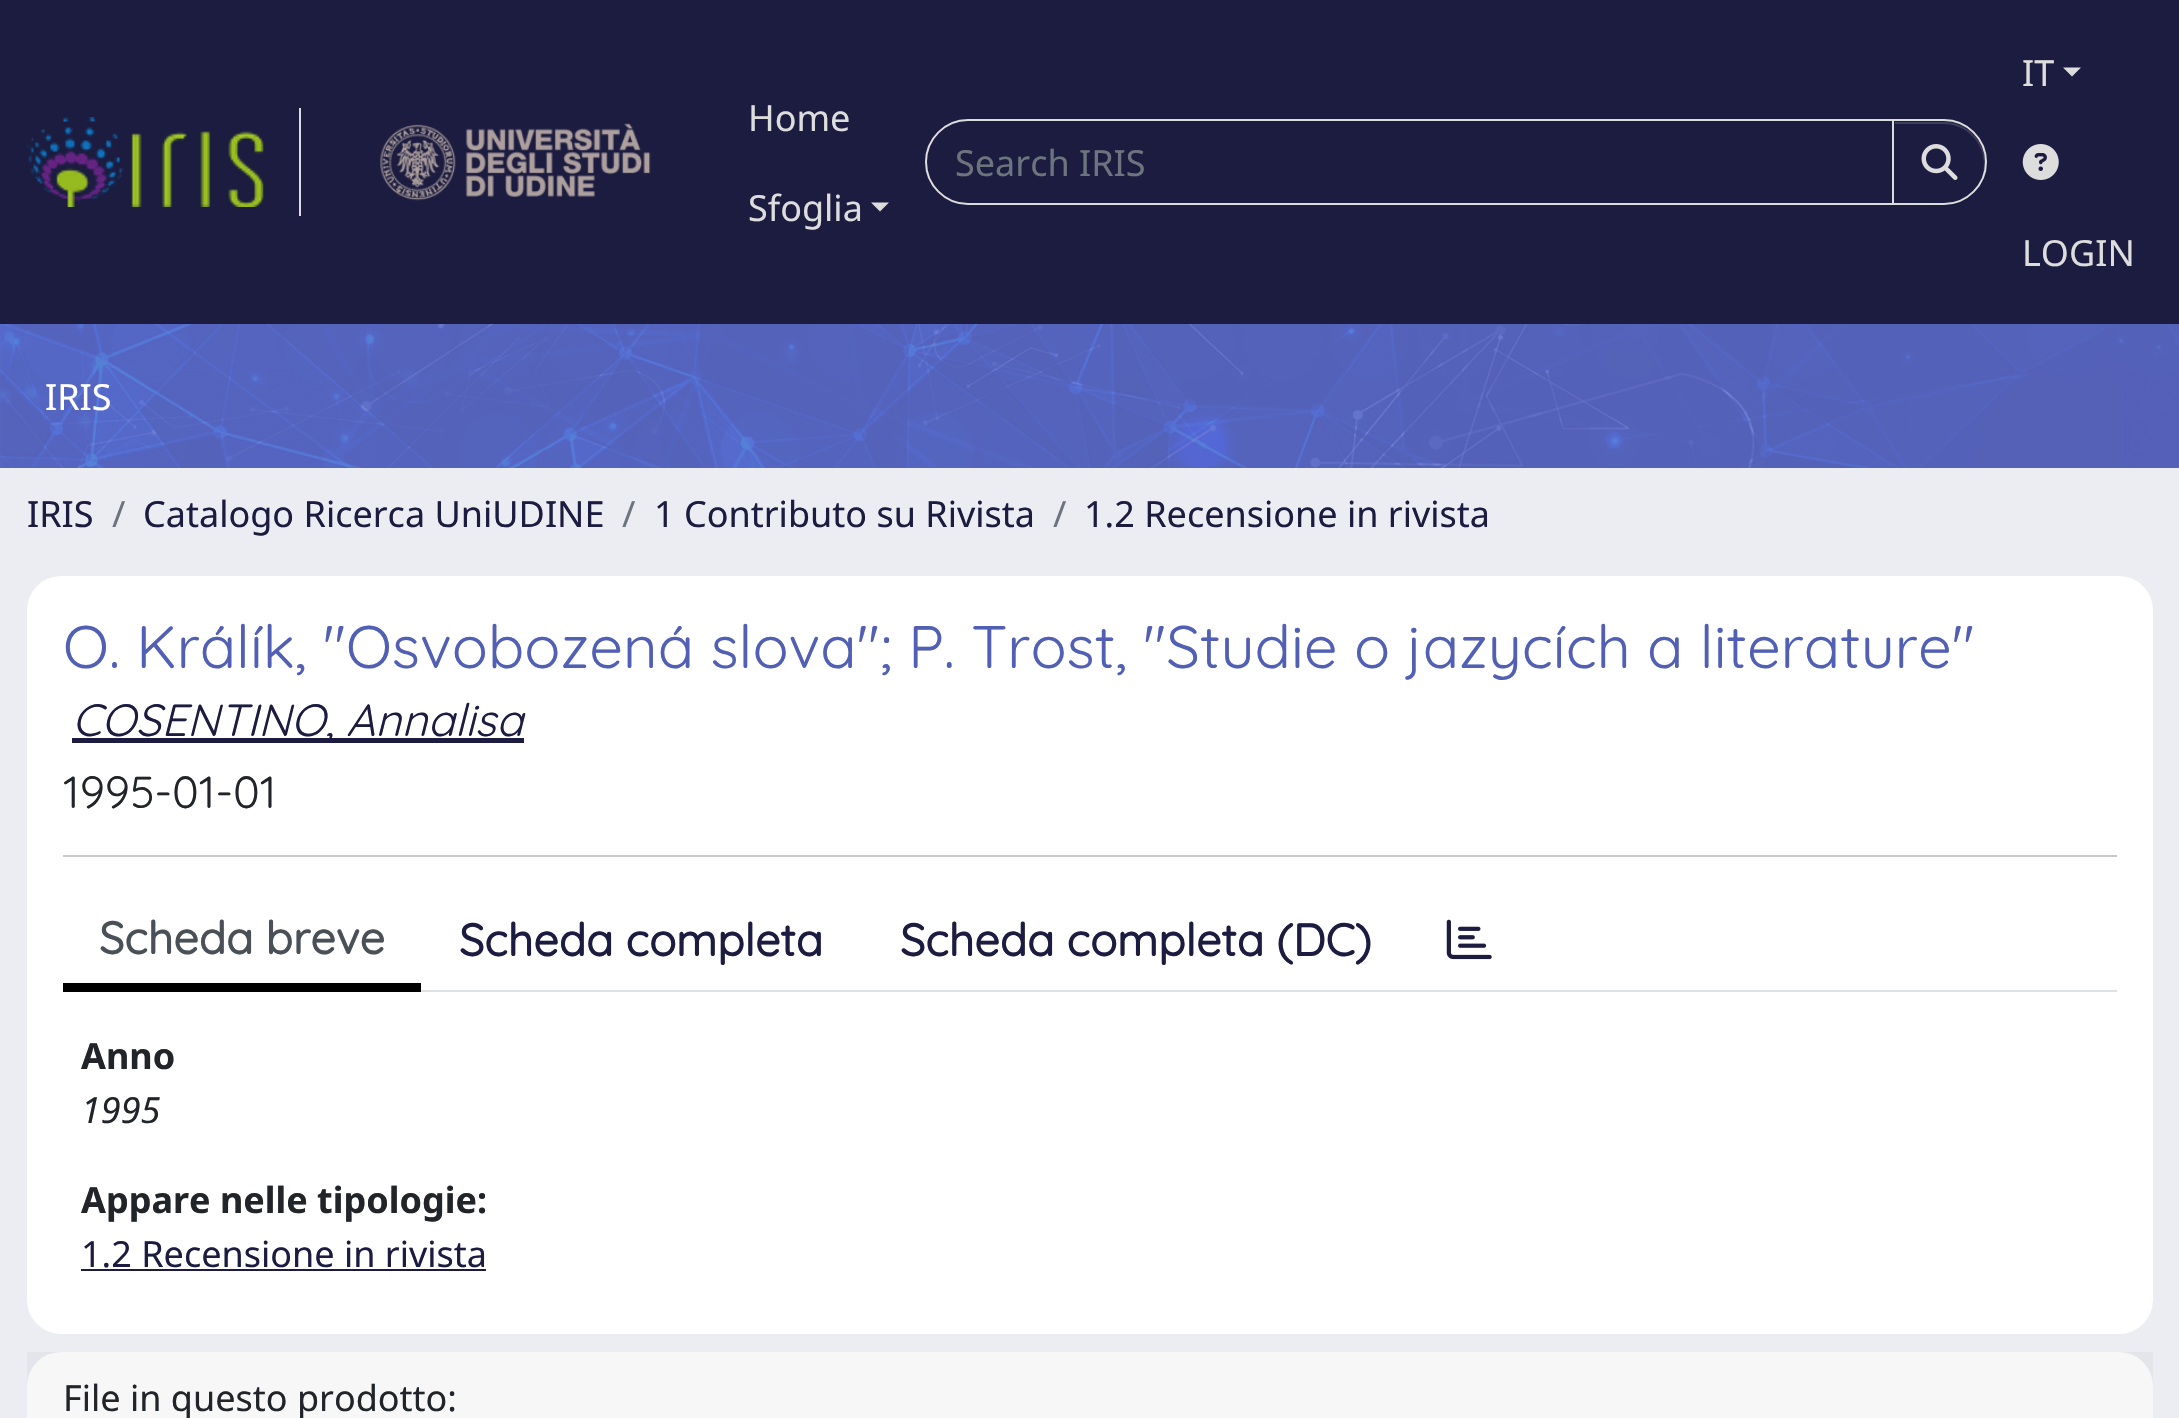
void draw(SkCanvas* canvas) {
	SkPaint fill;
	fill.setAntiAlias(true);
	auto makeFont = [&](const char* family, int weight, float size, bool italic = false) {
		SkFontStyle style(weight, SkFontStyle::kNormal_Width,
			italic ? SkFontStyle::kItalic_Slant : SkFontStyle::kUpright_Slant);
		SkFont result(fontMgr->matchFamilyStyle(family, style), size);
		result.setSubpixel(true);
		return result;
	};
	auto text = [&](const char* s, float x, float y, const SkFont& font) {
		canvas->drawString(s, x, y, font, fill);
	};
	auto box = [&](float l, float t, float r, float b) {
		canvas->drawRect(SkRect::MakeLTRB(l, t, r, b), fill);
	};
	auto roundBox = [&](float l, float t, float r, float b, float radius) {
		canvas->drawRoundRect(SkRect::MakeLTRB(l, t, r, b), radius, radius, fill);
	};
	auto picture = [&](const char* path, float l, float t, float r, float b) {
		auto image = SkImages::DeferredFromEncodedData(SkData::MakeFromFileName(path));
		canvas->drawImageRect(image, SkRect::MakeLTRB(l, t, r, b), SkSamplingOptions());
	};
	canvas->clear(0xFFECEDF2);
	fill.setColor(0xFF1B1C40);
	box(0, 0, 2179, 324);
	fill.setColor(0xFFDDDDDD);
	box(299, 108, 301, 216);
	picture("image0.png", 27, 117, 264, 207);
	picture("image1.png", 380, 123, 651, 201);
	canvas->drawPath(SkPathBuilder().moveTo(871, 202.5f).lineTo(889, 202.5f).lineTo(880, 211.5f).close().detach(), fill);
	fill.setStyle(SkPaint::kStroke_Style);
	fill.setStrokeWidth(2);
	canvas->drawPath(SkPathBuilder().moveTo(968, 120).lineTo(1894, 120).lineTo(1894, 204).lineTo(968, 204).cubicTo(945, 204, 926, 185, 926, 162).cubicTo(926, 139, 945, 120, 968, 120).close().detach(), fill);
	fill.setStyle(SkPaint::kFill_Style);
	fill.setColor(0x12000000);
	fill.setMaskFilter(SkMaskFilter::MakeBlur(kNormal_SkBlurStyle, 1));
	canvas->drawRoundRect(SkRect::MakeLTRB(1892, 122, 1987, 207), 42.5f, 42.5f, fill);
	fill.setMaskFilter(nullptr);
	fill.setColor(0xFF1B1C40);
	canvas->drawPath(SkPathBuilder().moveTo(1892, 119).lineTo(1944, 119).cubicTo(1967.5f, 119, 1987, 138.5f, 1987, 162).cubicTo(1987, 185.5f, 1967.5f, 205, 1944, 205).lineTo(1892, 205).close().detach(), fill);
	fill.setColor(0xFF3D3E5D);
	canvas->drawPath(SkPathBuilder().moveTo(1895, 122).lineTo(1895, 124).lineTo(1944, 124).cubicTo(1966, 124, 1984, 142, 1984, 164).cubicTo(1984, 170, 1983, 177, 1980, 182).cubicTo(1995, 156, 1975, 122, 1944, 122).close().detach(), fill);
	fill.setStyle(SkPaint::kStroke_Style);
	fill.setColor(0xFFDDDDDD);
	canvas->drawPath(SkPathBuilder().moveTo(1893, 120).lineTo(1944, 120).cubicTo(1967, 120, 1986, 139, 1986, 162).cubicTo(1986, 185, 1967, 204, 1944, 204).lineTo(1893, 204).close().detach(), fill);
	picture("image2.png", 1921, 144, 1958, 180);
	fill.setStyle(SkPaint::kFill_Style);
	canvas->drawPath(SkPathBuilder().moveTo(2063, 67.5f).lineTo(2081, 67.5f).lineTo(2072, 76.5f).close().detach(), fill);
	picture("image3.png", 2022, 144, 2059, 180);
	picture("image4.png", 0, 324, 2179, 468);
	fill.setColor(0xFFFFFFFF);
	roundBox(27, 576, 2153, 1334, 34);
	fill.setColor(0xFF1B1C40);
	box(72, 738, 524, 743);
	fill.setColor(0xFFC8C9CA);
	box(63, 855, 2117, 857);
	fill.setColor(0xFFDEE2E6);
	box(421, 990, 2117, 992);
	fill.setColor(0xFF000000);
	box(63, 983, 421, 992);
	picture("image5.png", 1446, 919, 1492, 960);
	fill.setColor(0xFF1B1C40);
	box(81, 1269, 486, 1271);
	fill.setColor(0xFFFFFFFF);
	roundBox(27, 1352, 2153, 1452, 34);
	fill.setColor(0x08000000);
	box(27, 1352, 2153, 1418);
	auto font1 = makeFont("Noto Sans", 400, 36);
	fill.setColor(0xFFDDDDDD);
	text("Home", 748, 131, font1);
	text("Sfoglia", 748, 221, font1);
	fill.setColor(0xFF6C757D);
	text("Search IRIS", 955, 176, font1);
	fill.setColor(0xFFDDDDDD);
	text("IT", 2022, 86, font1);
	text("LOGIN", 2022, 266, font1);
	fill.setColor(0xFFFFFFFF);
	text("IRIS", 45, 410, font1);
	fill.setColor(0xFF1B1C40);
	text("IRIS", 27, 527, font1);
	fill.setColor(0xFF6C757D);
	text("/", 112, 527, font1);
	fill.setColor(0xFF1B1C40);
	text("Catalogo Ricerca UniUDINE", 143, 527, font1);
	fill.setColor(0xFF6C757D);
	text("/", 622, 527, font1);
	fill.setColor(0xFF1B1C40);
	text("1 Contributo su Rivista", 654, 527, font1);
	fill.setColor(0xFF6C757D);
	text("/", 1053, 527, font1);
	fill.setColor(0xFF1B1C40);
	text("1.2 Recensione in rivista", 1084, 527, font1);
	auto font2 = makeFont("Quicksand", 400, 59.9f);
	fill.setColor(0xFF515FB5);
	text("O. Králík, \"Osvobozená slova\"; P. Trost, \"Studie o jazycích a literature\"", 63, 668, font2);
	auto font3 = makeFont("Quicksand", 400, 45, true);
	fill.setColor(0xFF1B1C40);
	text("COSENTINO, Annalisa", 72, 736, font3);
	auto font4 = makeFont("Quicksand", 400, 45);
	fill.setColor(0xFF212529);
	text("1995-01-01", 63, 808, font4);
	auto font5 = makeFont("Quicksand", 700, 45);
	fill.setColor(0xFF495057);
	text("Scheda breve", 99, 954, font5);
	fill.setColor(0xFF1B1C40);
	text("Scheda completa", 459, 956, font5);
	text("Scheda completa (DC)", 900, 956, font5);
	auto font6 = makeFont("Noto Sans", 700, 36);
	fill.setColor(0xFF212529);
	text("Anno", 81, 1069, font6);
	auto font7 = makeFont("Noto Sans", 400, 36, true);
	text("1995", 81, 1123, font7);
	text("Appare nelle tipologie:", 81, 1213, font6);
	fill.setColor(0xFF1B1C40);
	text("1.2 Recensione in rivista", 81, 1267, font1);
	fill.setColor(0xFF212529);
	text("File in questo prodotto:", 63, 1411, font1);
}
